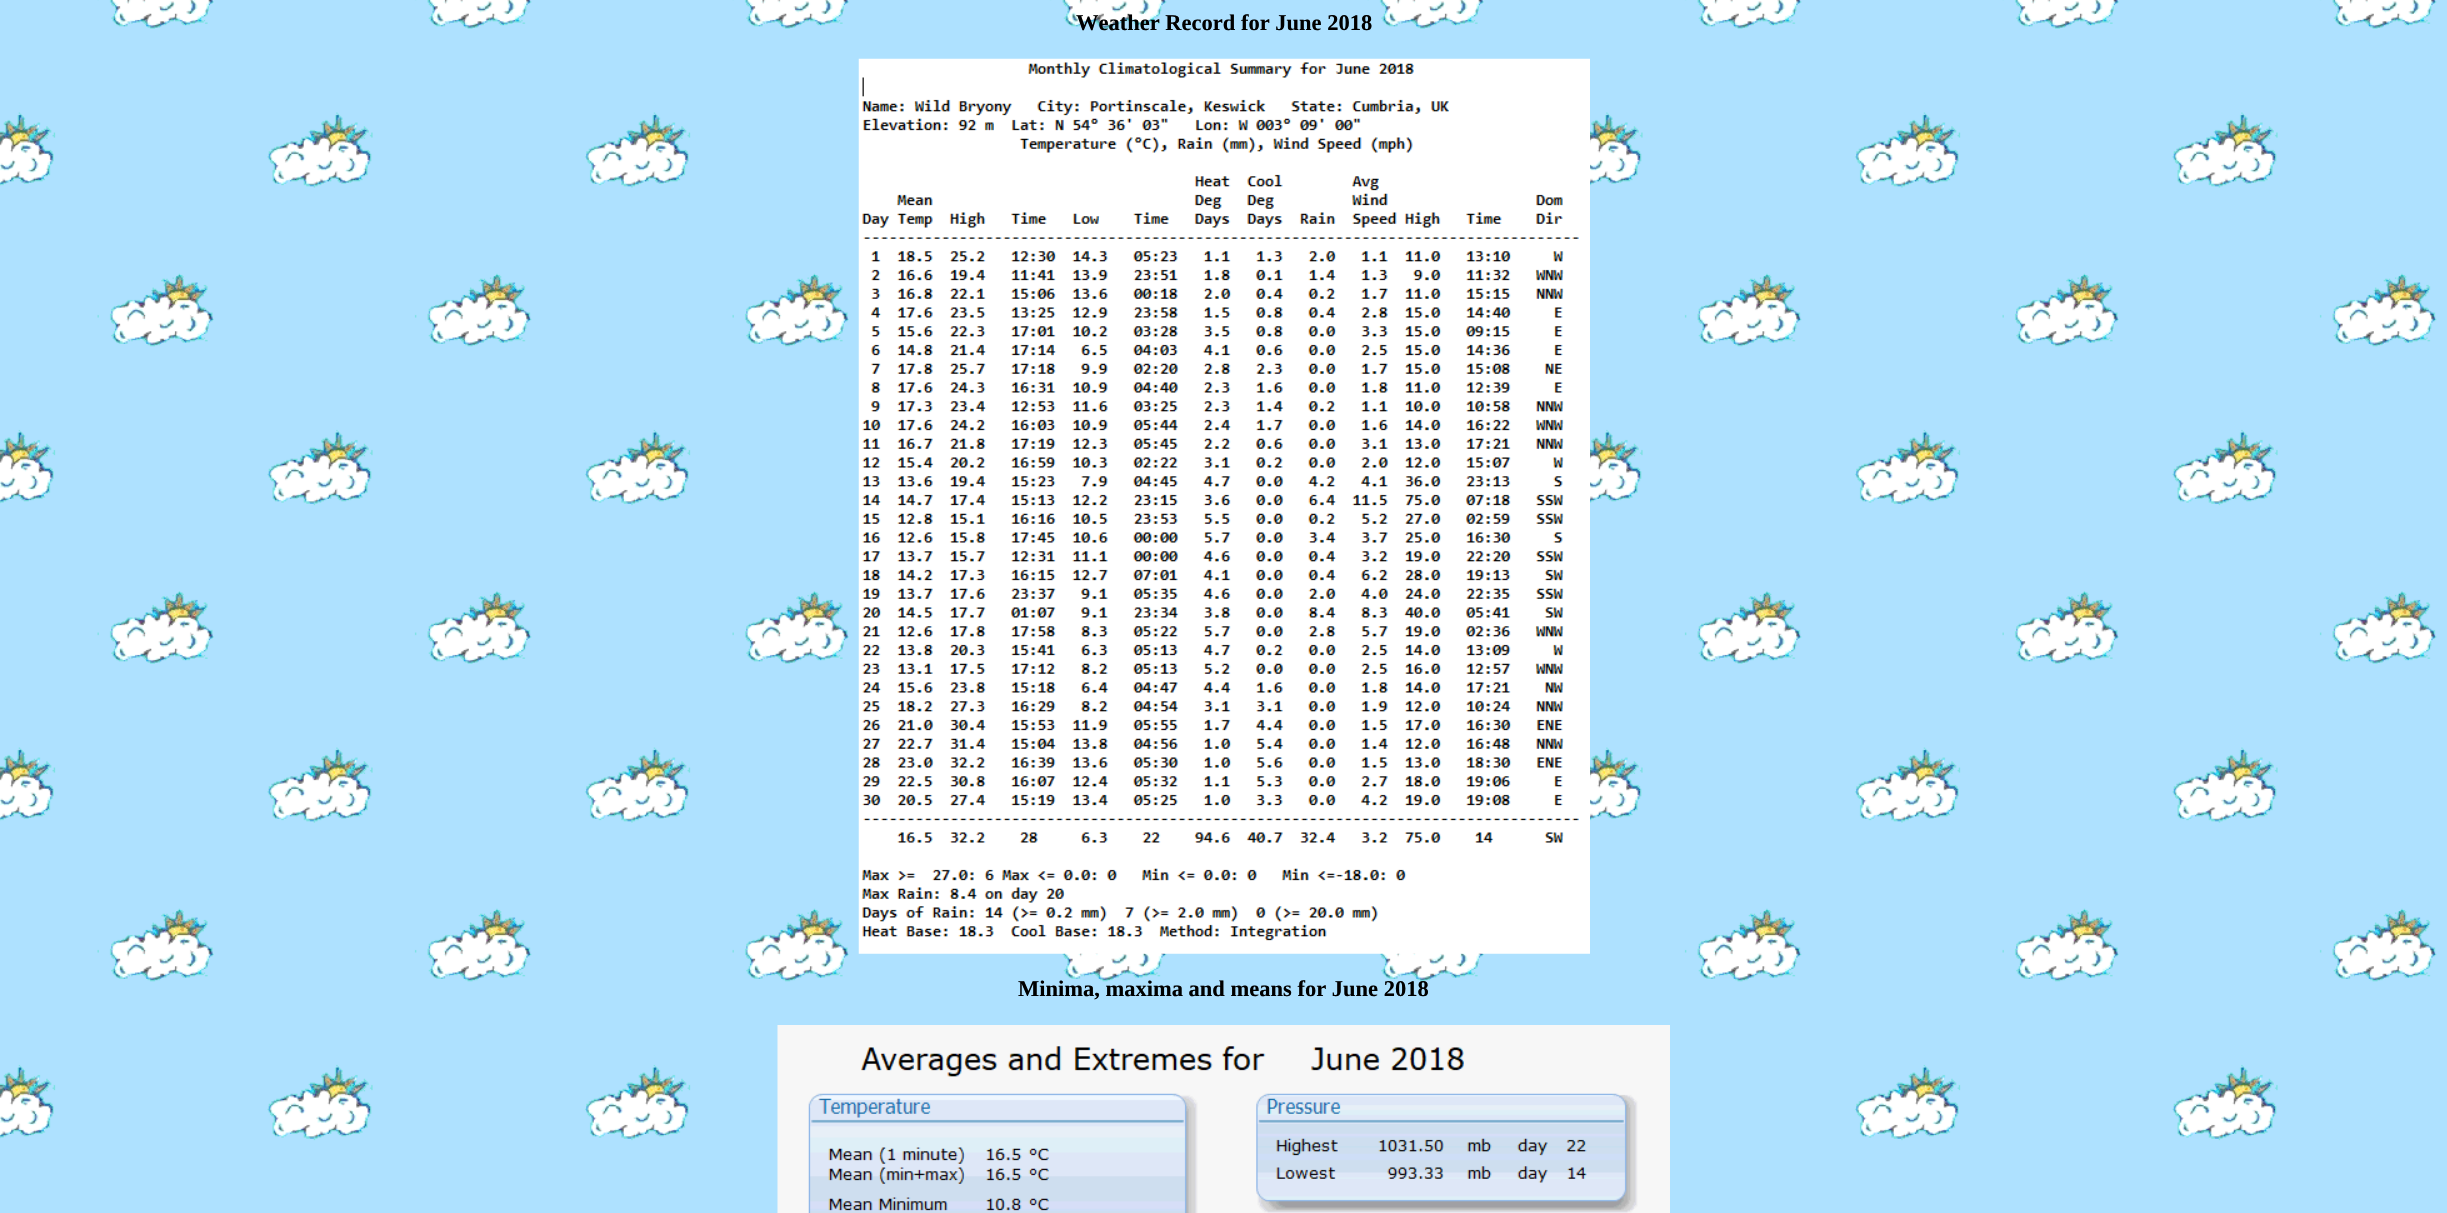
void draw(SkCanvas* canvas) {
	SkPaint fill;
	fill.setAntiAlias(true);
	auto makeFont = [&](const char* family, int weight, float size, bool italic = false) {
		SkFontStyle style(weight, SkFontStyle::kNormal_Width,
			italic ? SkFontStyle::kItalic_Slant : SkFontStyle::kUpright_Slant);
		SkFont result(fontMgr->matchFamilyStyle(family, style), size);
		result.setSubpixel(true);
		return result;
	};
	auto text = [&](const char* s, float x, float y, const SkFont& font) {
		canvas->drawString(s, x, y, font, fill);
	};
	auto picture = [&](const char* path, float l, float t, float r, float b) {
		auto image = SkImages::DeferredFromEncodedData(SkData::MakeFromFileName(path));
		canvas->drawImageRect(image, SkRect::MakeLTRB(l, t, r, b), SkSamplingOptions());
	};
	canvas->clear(0xFFFFFFFF);
	picture("image0.png", 0, 0, 2447, 1213);
	picture("image1.png", 858, 58, 1590, 954);
	picture("image2.png", 777, 1025, 1670, 1213);
	auto font1 = makeFont("Liberation Serif", 700, 22.5f);
	fill.setColor(0xFF000000);
	text("Weather Record for June 2018", 1076, 30, font1);
	text("Minima, maxima and means for June 2018", 1018, 996, font1);
}
